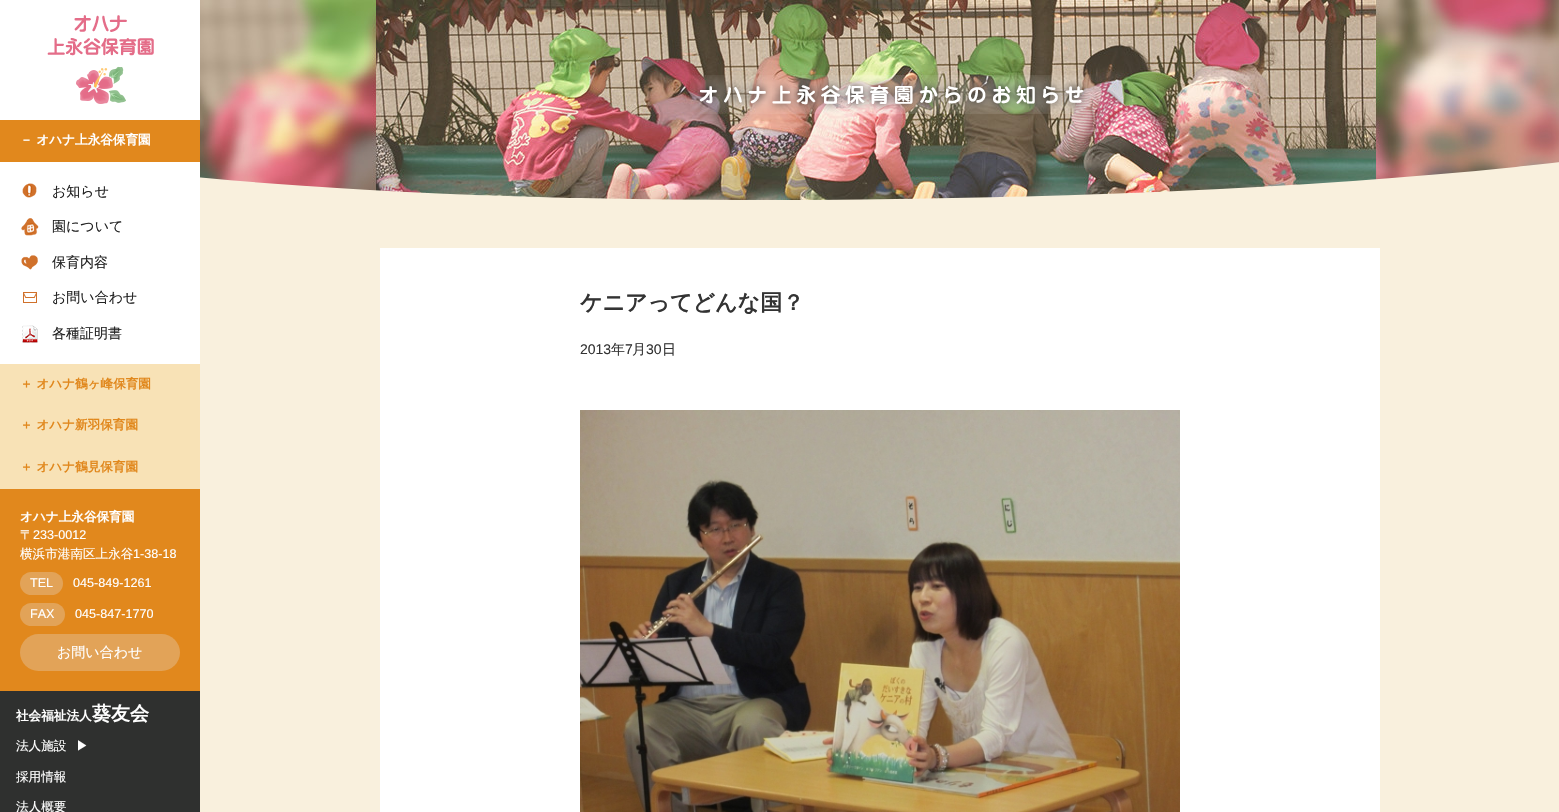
void draw(SkCanvas* canvas) {
	SkPaint fill;
	fill.setAntiAlias(true);
	auto makeFont = [&](const char* family, int weight, float size, bool italic = false) {
		SkFontStyle style(weight, SkFontStyle::kNormal_Width,
			italic ? SkFontStyle::kItalic_Slant : SkFontStyle::kUpright_Slant);
		SkFont result(fontMgr->matchFamilyStyle(family, style), size);
		result.setSubpixel(true);
		return result;
	};
	auto text = [&](const char* s, float x, float y, const SkFont& font) {
		canvas->drawString(s, x, y, font, fill);
	};
	auto box = [&](float l, float t, float r, float b) {
		canvas->drawRect(SkRect::MakeLTRB(l, t, r, b), fill);
	};
	auto roundBox = [&](float l, float t, float r, float b, float radius) {
		canvas->drawRoundRect(SkRect::MakeLTRB(l, t, r, b), radius, radius, fill);
	};
	auto picture = [&](const char* path, float l, float t, float r, float b) {
		auto image = SkImages::DeferredFromEncodedData(SkData::MakeFromFileName(path));
		canvas->drawImageRect(image, SkRect::MakeLTRB(l, t, r, b), SkSamplingOptions());
	};
	canvas->clear(0xFFF9F0DD);
	fill.setColor(0xFFFFFFFF);
	box(0, 0, 200, 364);
	picture("image0.png", 47, 15, 154, 104);
	fill.setColor(0xFFE1881D);
	box(0, 120, 200, 162);
	picture("image1.png", 22, 183, 37, 198);
	picture("image2.png", 21, 218, 39, 236);
	picture("image3.png", 21, 255, 38, 270);
	picture("image4.png", 23, 292, 37, 303);
	picture("image5.png", 22, 325, 38, 343);
	fill.setColor(0xFFF8E2B6);
	box(0, 364, 200, 489);
	fill.setColor(0xFFE1881D);
	box(0, 489, 200, 691);
	fill.setColor(0xFFE2A358);
	roundBox(20, 572, 63, 595, 11.5f);
	roundBox(20, 603, 65, 626, 11.5f);
	roundBox(20, 634, 180, 671, 18.5f);
	fill.setColor(0xFF2F302F);
	box(0, 691, 200, 812);
	picture("image6.png", 200, 0, 1559, 200);
	picture("image7.png", 690, 75, 1093, 114);
	fill.setColor(0xFFFFFFFF);
	box(380, 248, 1380, 812);
	picture("image8.png", 580, 410, 1180, 812);
	auto font1 = makeFont("WenQuanYi Zen Hei", 700, 12.6f);
	text("－ オハナ上永谷保育園", 20, 144, font1);
	auto font2 = makeFont("WenQuanYi Zen Hei", 500, 14);
	fill.setColor(0xFF222222);
	text("お知らせ", 52, 196, font2);
	text("園について", 52, 231, font2);
	text("保育内容", 52, 267, font2);
	text("お問い合わせ", 52, 302, font2);
	text("各種証明書", 52, 338, font2);
	fill.setColor(0xFFE1881D);
	text("＋ オハナ鶴ヶ峰保育園", 20, 388, font1);
	text("＋ オハナ新羽保育園", 20, 429, font1);
	text("＋ オハナ鶴見保育園", 20, 471, font1);
	fill.setColor(0xFFFFFFFF);
	text("オハナ上永谷保育園", 20, 521, font1);
	auto font3 = makeFont("WenQuanYi Zen Hei", 500, 12.6f);
	text("〒", 20, 539, font3);
	auto font4 = makeFont("Liberation Sans", 400, 12.6f);
	text("233-0012", 33, 539, font4);
	text("横浜市港南区上永谷", 20, 558, font3);
	text("1-38-18", 133, 558, font4);
	text("TEL", 30, 587, font4);
	text("045-849-1261", 73, 587, font4);
	text("FAX", 30, 618, font4);
	text("045-847-1770", 75, 618, font4);
	text("お問い合わせ", 57, 657, font2);
	text("社会福祉法人", 16, 720, font1);
	auto font5 = makeFont("WenQuanYi Zen Hei", 700, 19);
	text("葵友会", 92, 720, font5);
	text("法人施設", 16, 750, font3);
	text("▶", 76, 750, font3);
	text("採用情報", 16, 781, font3);
	text("法人概要", 16, 811, font3);
	auto font6 = makeFont("WenQuanYi Zen Hei", 700, 22);
	fill.setColor(0xFF333333);
	text("ケニアってどんな国？", 580, 310, font6);
	auto font7 = makeFont("Liberation Sans", 400, 14);
	text("2013", 580, 354, font7);
	text("年", 611, 354, font2);
	text("7", 625, 354, font7);
	text("月", 632, 354, font2);
	text("30", 646, 354, font7);
	text("日", 662, 354, font2);
}
